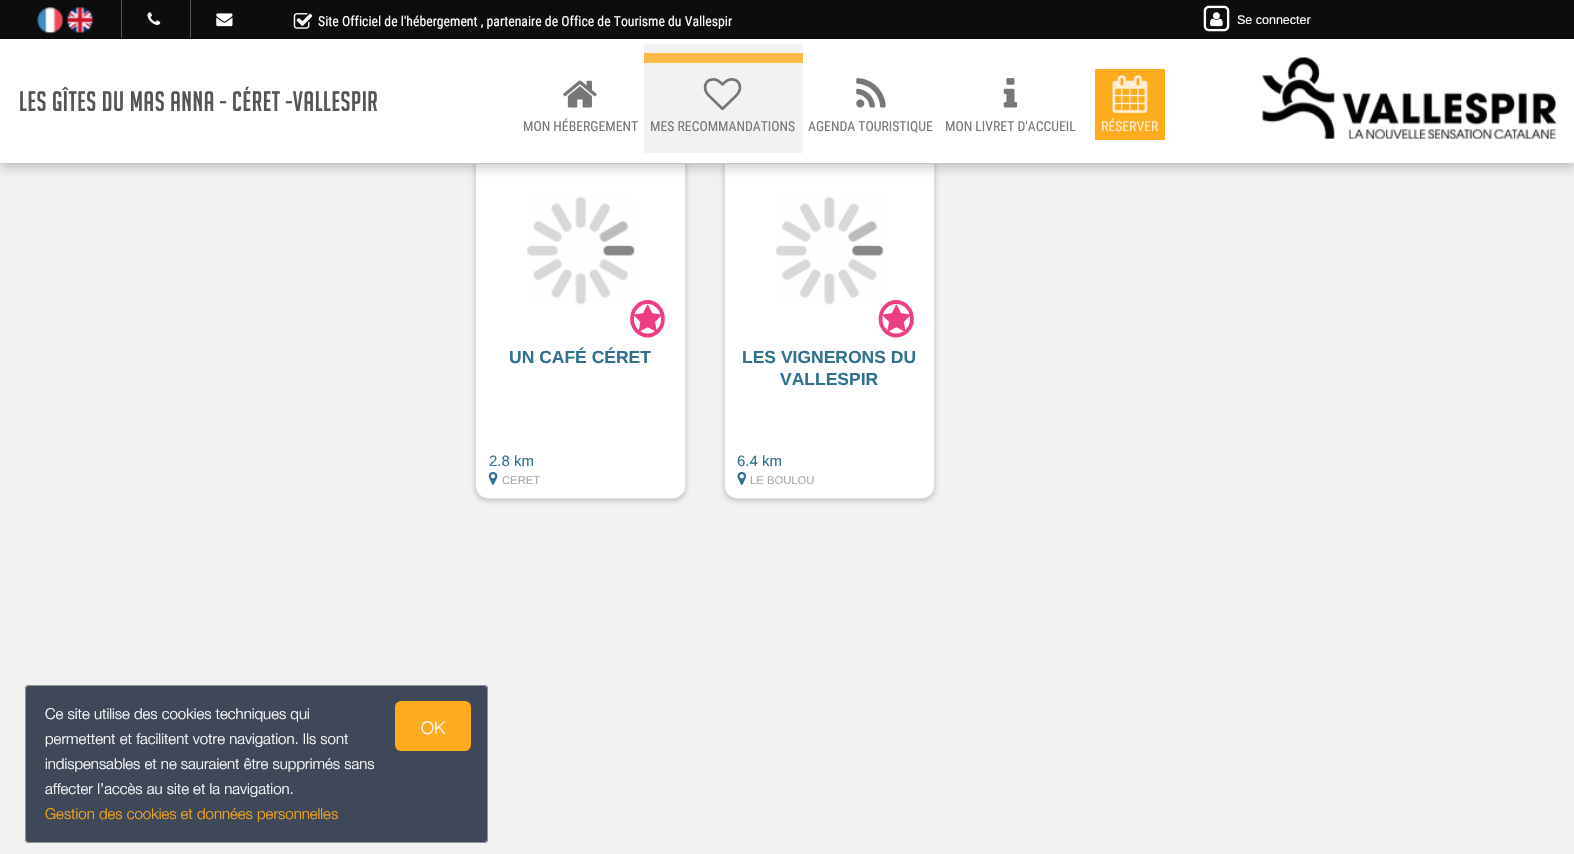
void draw(SkCanvas* canvas) {
	SkPaint fill;
	fill.setAntiAlias(true);
	auto makeFont = [&](const char* family, int weight, float size, bool italic = false) {
		SkFontStyle style(weight, SkFontStyle::kNormal_Width,
			italic ? SkFontStyle::kItalic_Slant : SkFontStyle::kUpright_Slant);
		SkFont result(fontMgr->matchFamilyStyle(family, style), size);
		result.setSubpixel(true);
		return result;
	};
	auto text = [&](const char* s, float x, float y, const SkFont& font) {
		canvas->drawString(s, x, y, font, fill);
	};
	auto spacedText = [&](const char* s, float x, float y, const SkFont& font, const SkPaint& ink, float letter, float word) {
		std::vector<SkGlyphID> glyphs(font.countText(s, strlen(s), SkTextEncoding::kUTF8));
		std::vector<float> xs(glyphs.size());
		font.textToGlyphs(s, strlen(s), SkTextEncoding::kUTF8, glyphs);
		font.getXPos(glyphs, xs, x);
		float extra = 0;
		for (size_t i = 0; i < glyphs.size(); i++) {
			xs[i] += extra;
			extra += letter + word * (glyphs[i] == font.unicharToGlyph(' '));
		}
		canvas->drawTextBlob(SkTextBlob::MakeFromPosHGlyphs(glyphs, xs, y, font), 0, 0, ink);
	};
	auto box = [&](float l, float t, float r, float b) {
		canvas->drawRect(SkRect::MakeLTRB(l, t, r, b), fill);
	};
	auto roundBox = [&](float l, float t, float r, float b, float radius) {
		canvas->drawRoundRect(SkRect::MakeLTRB(l, t, r, b), radius, radius, fill);
	};
	auto picture = [&](const char* path, float l, float t, float r, float b) {
		auto image = SkImages::DeferredFromEncodedData(SkData::MakeFromFileName(path));
		canvas->drawImageRect(image, SkRect::MakeLTRB(l, t, r, b), SkSamplingOptions());
	};
	canvas->clear(0xFFF2F2F2);
	fill.setColor(0x33000000);
	fill.setMaskFilter(SkMaskFilter::MakeBlur(kNormal_SkBlurStyle, 2.5f));
	canvas->drawRoundRect(SkRect::MakeLTRB(475, 151, 686, 501), 13, 13, fill);
	fill.setMaskFilter(nullptr);
	fill.setColor(0xFFFFFFFF);
	canvas->drawRoundRect(SkRect::MakeLTRB(475.5f, 149.5f, 685.5f, 498.5f), 12.5f, 12.5f, fill);
	fill.setStyle(SkPaint::kStroke_Style);
	fill.setStrokeWidth(1);
	fill.setColor(0xFFDDDDDD);
	canvas->drawRoundRect(SkRect::MakeLTRB(475.5f, 149.5f, 685.5f, 498.5f), 12.5f, 12.5f, fill);
	fill.setStyle(SkPaint::kFill_Style);
	fill.setColor(0x33000000);
	fill.setMaskFilter(SkMaskFilter::MakeBlur(kNormal_SkBlurStyle, 2.5f));
	canvas->drawRoundRect(SkRect::MakeLTRB(724, 151, 935, 501), 13, 13, fill);
	fill.setMaskFilter(nullptr);
	fill.setColor(0xFFFFFFFF);
	canvas->drawRoundRect(SkRect::MakeLTRB(724.5f, 149.5f, 934.5f, 498.5f), 12.5f, 12.5f, fill);
	fill.setStyle(SkPaint::kStroke_Style);
	fill.setColor(0xFFDDDDDD);
	canvas->drawRoundRect(SkRect::MakeLTRB(724.5f, 149.5f, 934.5f, 498.5f), 12.5f, 12.5f, fill);
	fill.setStyle(SkPaint::kFill_Style);
	fill.setColor(0xFFEEEEEE);
	box(0, 163, 1574, 164);
	fill.setColor(0x33000000);
	fill.setMaskFilter(SkMaskFilter::MakeBlur(kNormal_SkBlurStyle, 5));
	canvas->drawRect(SkRect::MakeLTRB(0, 5, 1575, 168), fill);
	fill.setMaskFilter(nullptr);
	fill.setColor(0xFFFFFFFF);
	box(0, 39, 1574, 163);
	fill.setColor(0xFF0D0C0E);
	box(0, 0, 1574, 39);
	picture("image0.png", 37, 7, 63, 34);
	picture("image1.png", 67, 7, 93, 34);
	fill.setColor(0xFF565556);
	box(121, 0, 122, 38);
	picture("image2.png", 147, 12, 161, 25);
	box(190, 0, 191, 38);
	picture("image3.png", 216, 13, 233, 27);
	picture("image4.png", 293, 13, 313, 29);
	picture("image5.png", 1203, 5, 1230, 32);
	picture("image6.png", 1210, 12, 1223, 27);
	picture("image7.png", 1262, 57, 1557, 139);
	picture("image8.png", 563, 80, 597, 108);
	fill.setColor(0xFFF2F2F2);
	box(644, 44, 803, 153);
	fill.setColor(0xFFFCB948);
	box(644, 53, 803, 63);
	picture("image9.png", 703, 78, 742, 111);
	picture("image10.png", 856, 78, 886, 108);
	picture("image11.png", 1003, 78, 1018, 108);
	fill.setColor(0xFFFFAB1E);
	box(1095, 69, 1165, 140);
	picture("image12.png", 1112, 75, 1148, 113);
	picture("image13.png", 527, 196, 635, 305);
	fill.setStyle(SkPaint::kStroke_Style);
	fill.setStrokeWidth(3.8f);
	fill.setColor(0xFFEE3D85);
	canvas->drawPath(SkPathBuilder().moveTo(647.5f, 302).cubicTo(656, 302, 663, 309.5f, 663, 319).cubicTo(663, 328, 656, 335.5f, 647.5f, 335.5f).cubicTo(639, 335.5f, 632, 328, 632, 319).cubicTo(632, 309.5f, 639, 302, 647.5f, 302).close().detach(), fill);
	picture("image14.png", 634, 304, 661, 332);
	picture("image15.png", 488, 472, 498, 485);
	picture("image16.png", 776, 196, 884, 305);
	canvas->drawPath(SkPathBuilder().moveTo(896, 302).cubicTo(905, 302, 912, 309.5f, 912, 319).cubicTo(912, 328, 905, 335.5f, 896, 335.5f).cubicTo(887.5f, 335.5f, 880.5f, 328, 880.5f, 319).cubicTo(880.5f, 309.5f, 887.5f, 302, 896, 302).close().detach(), fill);
	picture("image17.png", 882, 304, 910, 332);
	picture("image18.png", 737, 472, 747, 485);
	fill.setStyle(SkPaint::kFill_Style);
	fill.setColor(0xFF3F4858);
	roundBox(25, 685, 488, 843, 4);
	fill.setStyle(SkPaint::kStroke_Style);
	fill.setStrokeWidth(1);
	fill.setColor(0x66FFFFFF);
	canvas->drawRoundRect(SkRect::MakeLTRB(25.5f, 685.5f, 487.5f, 842.5f), 3.5f, 3.5f, fill);
	fill.setStyle(SkPaint::kFill_Style);
	fill.setColor(0xFFFFAB1E);
	roundBox(395, 701, 471, 751, 6);
	auto font1 = makeFont("Roboto Condensed", 400, 13.75f);
	fill.setColor(0xFFFFFFFF);
	text("Site Officiel de l'hébergement , partenaire de Office de Tourisme du Vallespir", 318, 26, font1);
	auto font2 = makeFont("Liberation Sans", 400, 12.5f);
	text("Se connecter", 1237, 24, font2);
	auto font3 = makeFont("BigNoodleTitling", 400, 27.5f);
	fill.setColor(0xFF555555);
	spacedText("LES GÎTES DU MAS ANNA - CÉRET -VALLESPIR", 19, 111, font3, fill, 0.6f, 0);
	fill.setColor(0xFF777777);
	text("MON HÉBERGEMENT", 523, 131, font1);
	text("MES RECOMMANDATIONS", 650, 131, font1);
	text("AGENDA TOURISTIQUE", 808, 131, font1);
	text("MON LIVRET D'ACCUEIL", 945, 131, font1);
	fill.setColor(0xFFFFEED2);
	text("RÉSERVER", 1101, 131, font1);
	auto font4 = makeFont("Liberation Sans", 700, 17.5f);
	fill.setColor(0xFF31708F);
	text("UN CAFÉ CÉRET", 509, 363, font4);
	auto font5 = makeFont("Liberation Sans", 400, 15);
	text("2.8 km", 489, 466, font5);
	auto font6 = makeFont("Liberation Sans", 400, 11.25f);
	fill.setColor(0xFFA7A7A7);
	text("CERET", 502, 484, font6);
	fill.setColor(0xFF31708F);
	text("LES VIGNERONS DU", 742, 363, font4);
	text("VALLESPIR", 780, 385, font4);
	text("6.4 km", 737, 466, font5);
	fill.setColor(0xFFA7A7A7);
	text("LE BOULOU", 750, 484, font6);
	auto font7 = makeFont("Helvetica Neue", 300, 15);
	fill.setColor(0xFFFFFFFF);
	text("Ce site utilise des cookies techniques qui", 45, 719, font7);
	auto font8 = makeFont("Helvetica Neue", 300, 17.5f);
	text("OK", 421, 734, font8);
	text("permettent et facilitent votre navigation. Ils sont", 45, 744, font7);
	text("indispensables et ne sauraient être supprimés sans", 45, 769, font7);
	text("affecter l’accès au site et la navigation.", 45, 794, font7);
	fill.setColor(0xFFFFAB1E);
	text("Gestion des cookies et données personnelles", 45, 819, font7);
}
